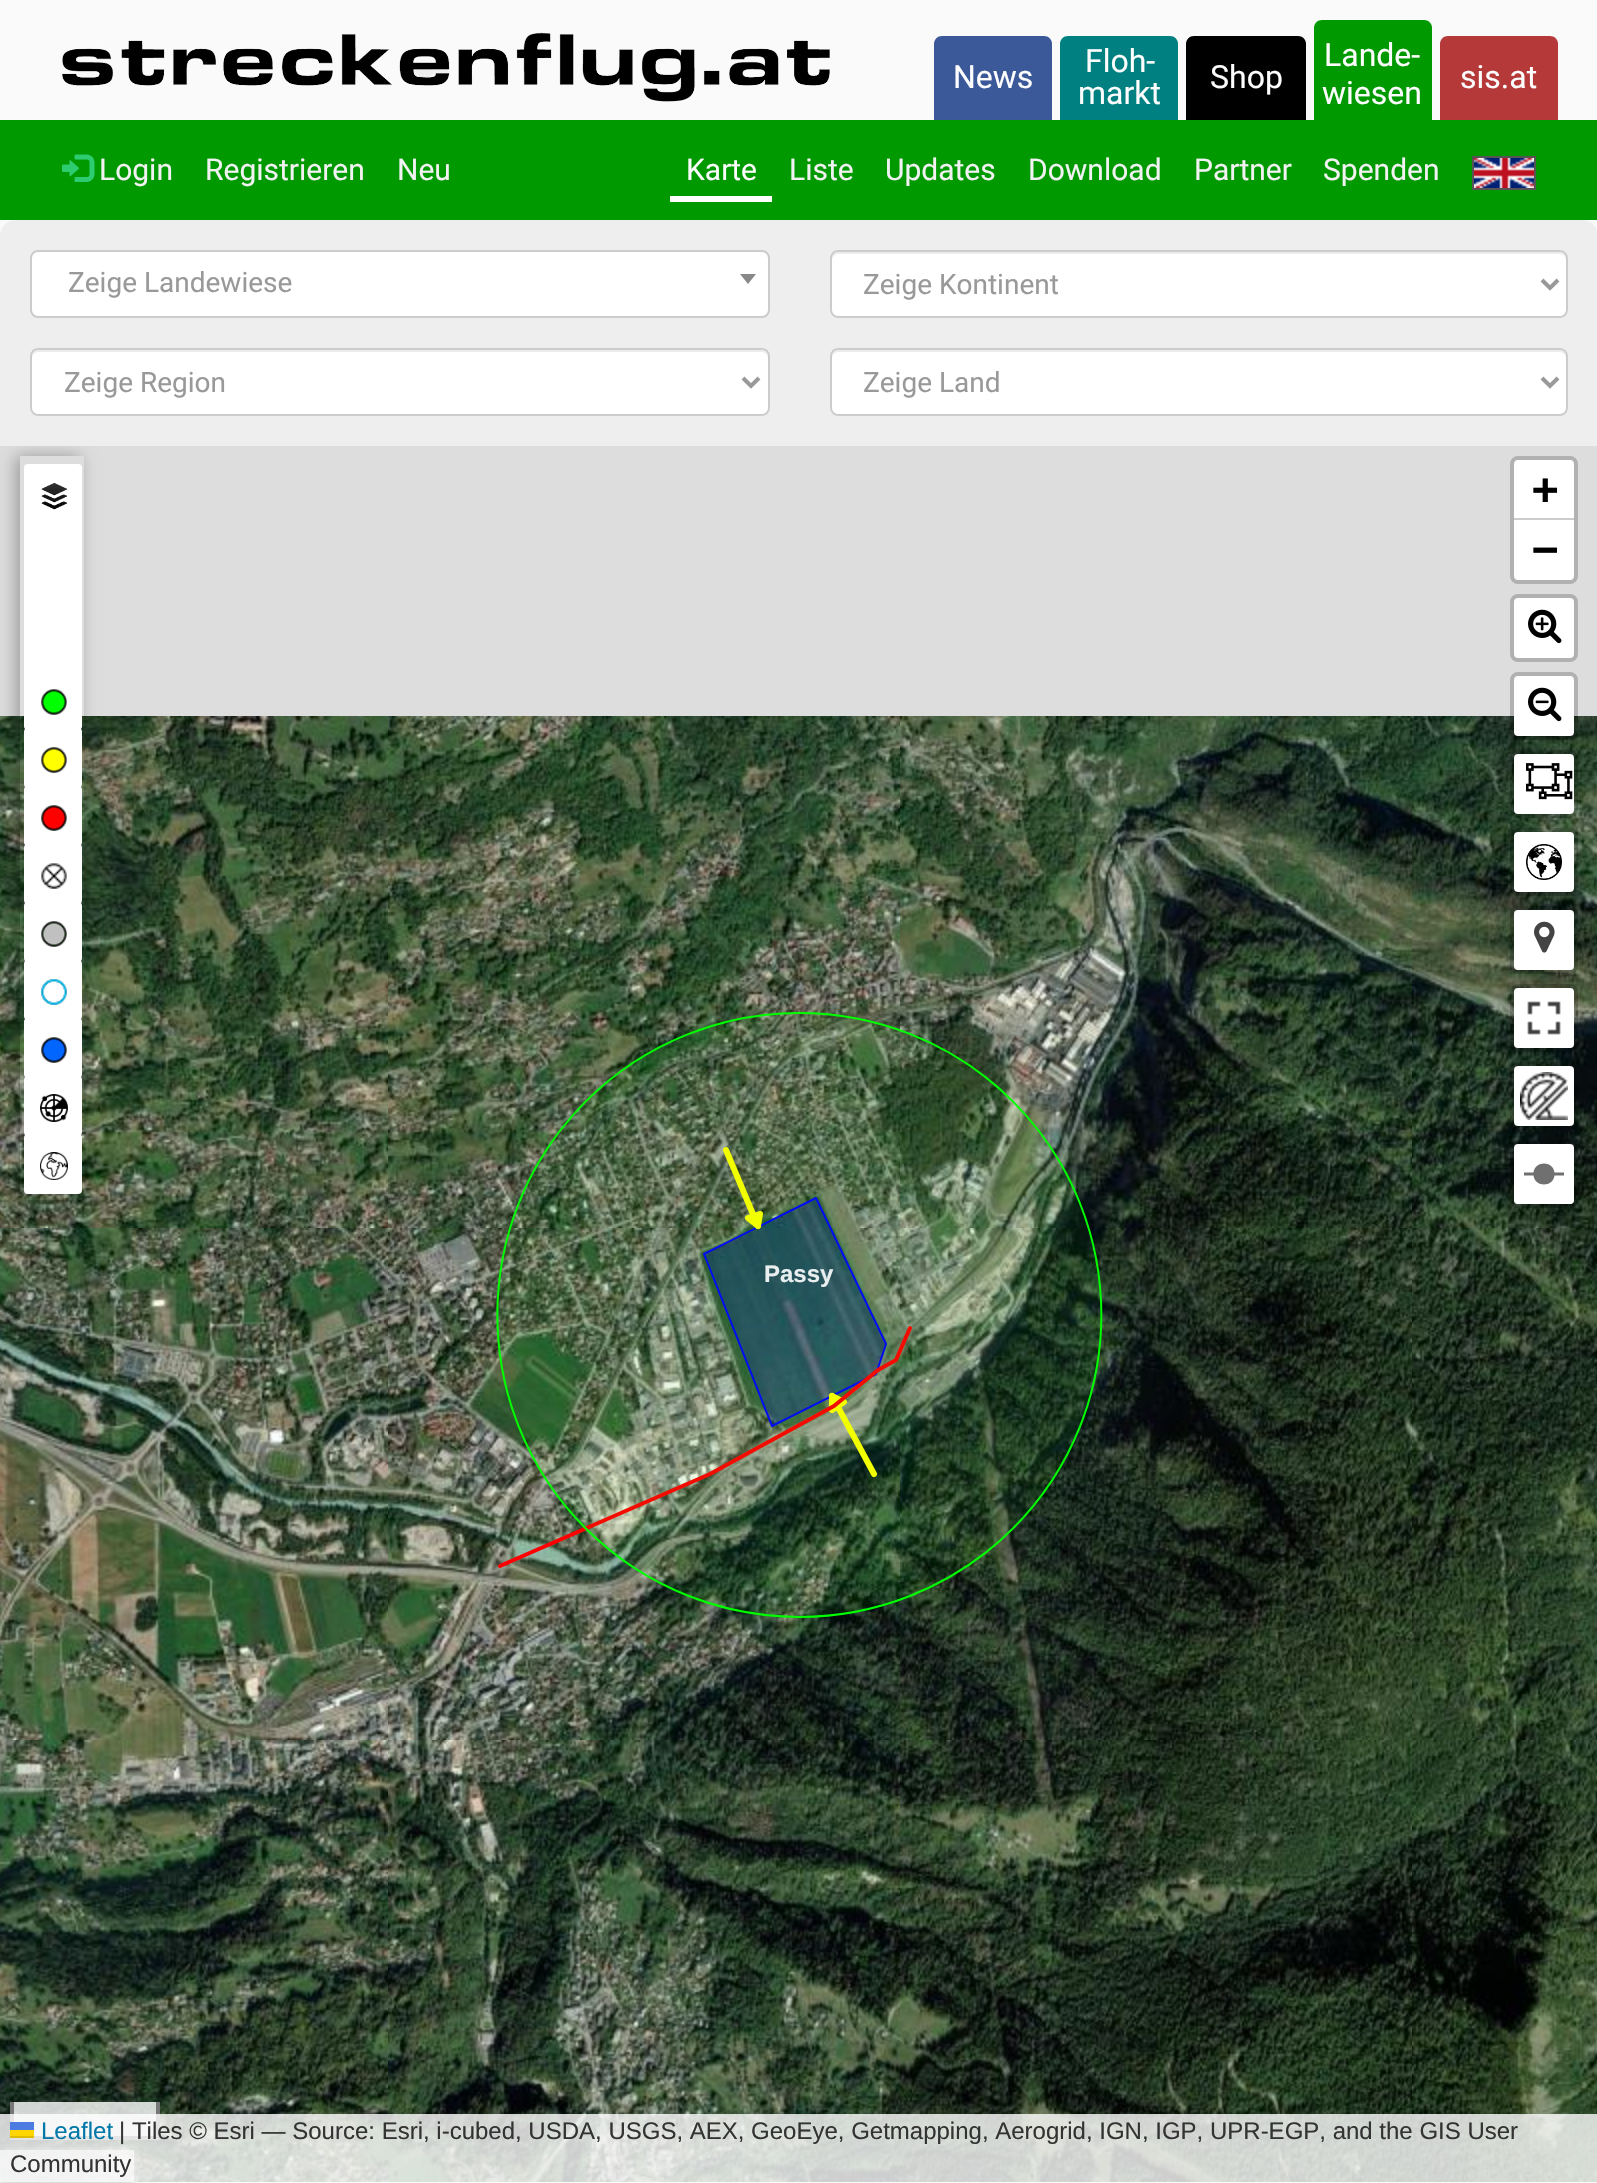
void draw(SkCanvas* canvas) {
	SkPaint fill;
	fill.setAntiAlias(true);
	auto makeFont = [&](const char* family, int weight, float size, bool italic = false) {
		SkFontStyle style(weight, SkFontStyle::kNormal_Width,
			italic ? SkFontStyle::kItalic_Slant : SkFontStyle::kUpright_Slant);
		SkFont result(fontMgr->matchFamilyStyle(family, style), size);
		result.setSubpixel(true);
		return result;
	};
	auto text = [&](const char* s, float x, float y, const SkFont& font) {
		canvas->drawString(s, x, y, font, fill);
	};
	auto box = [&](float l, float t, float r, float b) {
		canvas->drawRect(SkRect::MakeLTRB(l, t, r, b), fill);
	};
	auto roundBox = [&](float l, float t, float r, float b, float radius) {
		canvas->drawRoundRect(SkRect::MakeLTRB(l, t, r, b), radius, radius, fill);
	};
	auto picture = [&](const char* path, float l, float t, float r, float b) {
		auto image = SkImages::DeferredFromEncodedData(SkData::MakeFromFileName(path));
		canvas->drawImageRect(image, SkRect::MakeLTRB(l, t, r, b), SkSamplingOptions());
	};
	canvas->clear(0xFFFAFAFA);
	picture("image0.png", 62, 32, 830, 102);
	fill.setColor(0xFF3B5999);
	canvas->drawPath(SkPathBuilder().moveTo(942, 36).lineTo(1044, 36).cubicTo(1048.5f, 36, 1052, 39.5f, 1052, 44).lineTo(1052, 120).lineTo(934, 120).lineTo(934, 44).cubicTo(934, 39.5f, 937.5f, 36, 942, 36).close().detach(), fill);
	fill.setColor(0xFF008080);
	canvas->drawPath(SkPathBuilder().moveTo(1068, 36).lineTo(1170, 36).cubicTo(1174.5f, 36, 1178, 39.5f, 1178, 44).lineTo(1178, 120).lineTo(1060, 120).lineTo(1060, 44).cubicTo(1060, 39.5f, 1063.5f, 36, 1068, 36).close().detach(), fill);
	fill.setColor(0xFF000000);
	canvas->drawPath(SkPathBuilder().moveTo(1194, 36).lineTo(1298, 36).cubicTo(1302.5f, 36, 1306, 39.5f, 1306, 44).lineTo(1306, 120).lineTo(1186, 120).lineTo(1186, 44).cubicTo(1186, 39.5f, 1189.5f, 36, 1194, 36).close().detach(), fill);
	fill.setColor(0xFF009900);
	canvas->drawPath(SkPathBuilder().moveTo(1322, 20).lineTo(1424, 20).cubicTo(1428.5f, 20, 1432, 23.5f, 1432, 28).lineTo(1432, 120).lineTo(1314, 120).lineTo(1314, 28).cubicTo(1314, 23.5f, 1317.5f, 20, 1322, 20).close().detach(), fill);
	fill.setColor(0xFFB53939);
	canvas->drawPath(SkPathBuilder().moveTo(1448, 36).lineTo(1550, 36).cubicTo(1554.5f, 36, 1558, 39.5f, 1558, 44).lineTo(1558, 120).lineTo(1440, 120).lineTo(1440, 44).cubicTo(1440, 39.5f, 1443.5f, 36, 1448, 36).close().detach(), fill);
	fill.setColor(0xFF009900);
	box(0, 120, 1597, 220);
	picture("image1.png", 62, 154, 95, 182);
	fill.setColor(0xFFFFFFFF);
	box(670, 196, 772, 202);
	fill.setStyle(SkPaint::kStroke_Style);
	fill.setStrokeWidth(2);
	fill.setColor(0xFF555555);
	canvas->drawRect(SkRect::MakeLTRB(1473, 157, 1535, 189), fill);
	picture("image2.png", 1474, 158, 1534, 188);
	fill.setStyle(SkPaint::kFill_Style);
	fill.setColor(0xFFEEEEEE);
	canvas->drawPath(SkPathBuilder().moveTo(16, 220).lineTo(1582, 220).cubicTo(1591, 220, 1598, 227, 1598, 236).lineTo(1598, 446).lineTo(0, 446).lineTo(0, 236).cubicTo(0, 227, 7, 220, 16, 220).close().detach(), fill);
	fill.setColor(0xFFFFFFFF);
	canvas->drawRoundRect(SkRect::MakeLTRB(31, 251, 769, 317), 7, 7, fill);
	fill.setStyle(SkPaint::kStroke_Style);
	fill.setColor(0xFFCCCCCC);
	canvas->drawRoundRect(SkRect::MakeLTRB(31, 251, 769, 317), 7, 7, fill);
	fill.setStyle(SkPaint::kFill_Style);
	fill.setColor(0xFF888888);
	canvas->drawPath(SkPathBuilder().moveTo(740, 274).lineTo(756, 274).lineTo(748, 284).close().detach(), fill);
	fill.setColor(0xFFFFFFFF);
	roundBox(830, 250, 1568, 318, 8);
	fill.setColor(0xFFECECEC);
	canvas->drawPath(SkPathBuilder().moveTo(838, 254).lineTo(1560, 254).cubicTo(1563, 254, 1566, 257, 1566, 260).lineTo(1566, 258).cubicTo(1566, 255, 1563, 252, 1560, 252).lineTo(838, 252).cubicTo(835, 252, 832, 255, 832, 258).lineTo(832, 260).cubicTo(832, 257, 835, 254, 838, 254).close().detach(), fill);
	fill.setStyle(SkPaint::kStroke_Style);
	fill.setColor(0xFFCCCCCC);
	canvas->drawRoundRect(SkRect::MakeLTRB(831, 251, 1567, 317), 7, 7, fill);
	fill.setStrokeWidth(4);
	fill.setColor(0xFF999999);
	canvas->drawPath(SkPathBuilder().moveTo(1542, 280).lineTo(1550, 288).lineTo(1558, 280).detach(), fill);
	fill.setStyle(SkPaint::kFill_Style);
	fill.setColor(0xFFFFFFFF);
	roundBox(30, 348, 770, 416, 8);
	fill.setColor(0xFFECECEC);
	canvas->drawPath(SkPathBuilder().moveTo(38, 352).lineTo(762, 352).cubicTo(765, 352, 768, 355, 768, 358).lineTo(768, 356).cubicTo(768, 353, 765, 350, 762, 350).lineTo(38, 350).cubicTo(35, 350, 32, 353, 32, 356).lineTo(32, 358).cubicTo(32, 355, 35, 352, 38, 352).close().detach(), fill);
	fill.setStyle(SkPaint::kStroke_Style);
	fill.setStrokeWidth(2);
	fill.setColor(0xFFCCCCCC);
	canvas->drawRoundRect(SkRect::MakeLTRB(31, 349, 769, 415), 7, 7, fill);
	fill.setStrokeWidth(4);
	fill.setColor(0xFF999999);
	canvas->drawPath(SkPathBuilder().moveTo(743, 378).lineTo(751, 386).lineTo(759, 378).detach(), fill);
	fill.setStyle(SkPaint::kFill_Style);
	fill.setColor(0xFFFFFFFF);
	roundBox(830, 348, 1568, 416, 8);
	fill.setColor(0xFFECECEC);
	canvas->drawPath(SkPathBuilder().moveTo(838, 352).lineTo(1560, 352).cubicTo(1563, 352, 1566, 355, 1566, 358).lineTo(1566, 356).cubicTo(1566, 353, 1563, 350, 1560, 350).lineTo(838, 350).cubicTo(835, 350, 832, 353, 832, 356).lineTo(832, 358).cubicTo(832, 355, 835, 352, 838, 352).close().detach(), fill);
	fill.setStyle(SkPaint::kStroke_Style);
	fill.setStrokeWidth(2);
	fill.setColor(0xFFCCCCCC);
	canvas->drawRoundRect(SkRect::MakeLTRB(831, 349, 1567, 415), 7, 7, fill);
	fill.setStrokeWidth(4);
	fill.setColor(0xFF999999);
	canvas->drawPath(SkPathBuilder().moveTo(1542, 378).lineTo(1550, 386).lineTo(1558, 378).detach(), fill);
	fill.setStyle(SkPaint::kFill_Style);
	fill.setColor(0xFFDDDDDD);
	box(0, 446, 1597, 716);
	picture("image20.png", 0, 716, 388, 1228);
	canvas->save();
	canvas->clipRect(SkRect::MakeLTRB(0, 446, 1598, 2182));
	canvas->clipPath(SkPathBuilder(SkPathFillType::kEvenOdd).moveTo(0, 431).lineTo(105, 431).lineTo(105, 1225).lineTo(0, 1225).close().moveTo(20, 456).lineTo(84, 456).lineTo(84, 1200).lineTo(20, 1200).close().detach(), true);
	fill.setColor(0x4D000000);
	fill.setMaskFilter(SkMaskFilter::MakeBlur(kNormal_SkBlurStyle, 8));
	canvas->drawRect(SkRect::MakeLTRB(16, 456, 80, 1200), fill);
	fill.setMaskFilter(nullptr);
	canvas->restore();
	fill.setColor(0xFFFFFFFF);
	roundBox(24, 464, 82, 524, 4);
	picture("image3.png", 41, 483, 68, 510);
	roundBox(24, 514, 82, 574, 4);
	roundBox(24, 564, 82, 624, 4);
	roundBox(24, 614, 82, 674, 4);
	roundBox(24, 670, 82, 730, 4);
	picture("image4.png", 41, 689, 67, 715);
	roundBox(24, 728, 82, 788, 4);
	picture("image5.png", 41, 747, 67, 773);
	roundBox(24, 786, 82, 846, 4);
	picture("image6.png", 41, 805, 67, 831);
	roundBox(24, 844, 82, 904, 4);
	picture("image7.png", 41, 863, 67, 889);
	roundBox(24, 902, 82, 962, 4);
	picture("image8.png", 41, 921, 67, 947);
	roundBox(24, 960, 82, 1020, 4);
	picture("image9.png", 41, 979, 67, 1005);
	roundBox(24, 1018, 82, 1078, 4);
	picture("image10.png", 41, 1037, 67, 1063);
	roundBox(24, 1076, 82, 1136, 4);
	picture("image11.png", 40, 1094, 68, 1122);
	roundBox(24, 1134, 82, 1194, 4);
	picture("image12.png", 40, 1152, 68, 1180);
	fill.setStyle(SkPaint::kStroke_Style);
	fill.setColor(0x33000000);
	canvas->drawRoundRect(SkRect::MakeLTRB(1512, 458, 1576, 582), 6, 6, fill);
	fill.setStyle(SkPaint::kFill_Style);
	fill.setColor(0xFFFFFFFF);
	canvas->drawPath(SkPathBuilder().moveTo(1518, 460).lineTo(1570, 460).cubicTo(1572, 460, 1574, 462, 1574, 464).lineTo(1574, 520).lineTo(1514, 520).lineTo(1514, 464).cubicTo(1514, 462, 1516, 460, 1518, 460).close().detach(), fill);
	fill.setColor(0xFFCCCCCC);
	box(1514, 518, 1574, 520);
	fill.setColor(0xFFFFFFFF);
	canvas->drawPath(SkPathBuilder().moveTo(1514, 520).lineTo(1574, 520).lineTo(1574, 576).cubicTo(1574, 578, 1572, 580, 1570, 580).lineTo(1518, 580).cubicTo(1516, 580, 1514, 578, 1514, 576).close().detach(), fill);
	roundBox(1514, 598, 1574, 658, 4);
	fill.setStyle(SkPaint::kStroke_Style);
	fill.setColor(0x33000000);
	canvas->drawRoundRect(SkRect::MakeLTRB(1512, 596, 1576, 660), 6, 6, fill);
	picture("image13.png", 1528, 609, 1562, 644);
	picture("image23.png", 1412, 716, 1597, 1228);
	fill.setStyle(SkPaint::kFill_Style);
	fill.setColor(0xFFFFFFFF);
	roundBox(1514, 676, 1574, 736, 4);
	fill.setStyle(SkPaint::kStroke_Style);
	fill.setColor(0x33000000);
	canvas->drawRoundRect(SkRect::MakeLTRB(1512, 674, 1576, 738), 6, 6, fill);
	picture("image14.png", 1528, 687, 1562, 722);
	fill.setStyle(SkPaint::kFill_Style);
	fill.setColor(0xFFFFFFFF);
	roundBox(1514, 754, 1574, 814, 4);
	fill.setStyle(SkPaint::kStroke_Style);
	fill.setColor(0x33000000);
	canvas->drawRoundRect(SkRect::MakeLTRB(1512, 752, 1576, 816), 6, 6, fill);
	picture("image15.png", 1526, 763, 1573, 800);
	fill.setStyle(SkPaint::kFill_Style);
	fill.setColor(0xFFFFFFFF);
	roundBox(1514, 832, 1574, 892, 4);
	fill.setStyle(SkPaint::kStroke_Style);
	fill.setColor(0x33000000);
	canvas->drawRoundRect(SkRect::MakeLTRB(1512, 830, 1576, 894), 6, 6, fill);
	picture("image16.png", 1526, 844, 1562, 880);
	canvas->drawRoundRect(SkRect::MakeLTRB(1512, 908, 1576, 972), 6, 6, fill);
	fill.setStyle(SkPaint::kFill_Style);
	fill.setColor(0xFFFFFFFF);
	roundBox(1514, 910, 1574, 970, 4);
	picture("image17.png", 1534, 921, 1555, 953);
	fill.setStyle(SkPaint::kStroke_Style);
	fill.setColor(0x33000000);
	canvas->drawRoundRect(SkRect::MakeLTRB(1512, 986, 1576, 1050), 6, 6, fill);
	fill.setStyle(SkPaint::kFill_Style);
	fill.setColor(0xFFFFFFFF);
	roundBox(1514, 988, 1574, 1048, 4);
	picture("image18.png", 1527, 1001, 1561, 1035);
	roundBox(1514, 1066, 1574, 1126, 4);
	picture("image19.png", 1520, 1072, 1568, 1120);
	fill.setStyle(SkPaint::kStroke_Style);
	fill.setColor(0x33000000);
	canvas->drawRoundRect(SkRect::MakeLTRB(1512, 1064, 1576, 1128), 6, 6, fill);
	fill.setStyle(SkPaint::kFill_Style);
	fill.setColor(0xFFFFFFFF);
	roundBox(1514, 1144, 1574, 1204, 4);
	fill.setStyle(SkPaint::kStroke_Style);
	fill.setColor(0x33000000);
	canvas->drawRoundRect(SkRect::MakeLTRB(1512, 1142, 1576, 1206), 6, 6, fill);
	fill.setStyle(SkPaint::kFill_Style);
	fill.setColor(0xFFFFFFFF);
	canvas->drawPath(SkPathBuilder().moveTo(1522, 1144).lineTo(1566, 1144).cubicTo(1570.5f, 1144, 1574, 1147.5f, 1574, 1152).lineTo(1574, 1200).cubicTo(1574, 1202, 1572, 1204, 1570, 1204).lineTo(1518, 1204).cubicTo(1516, 1204, 1514, 1202, 1514, 1200).lineTo(1514, 1152).cubicTo(1514, 1147.5f, 1517.5f, 1144, 1522, 1144).close().detach(), fill);
	fill.setColor(0xFF707070);
	canvas->drawPath(SkPathBuilder().moveTo(1564, 1172.5f).lineTo(1554.5f, 1172.5f).cubicTo(1553, 1160.5f, 1535, 1160.5f, 1533.5f, 1172.5f).lineTo(1524, 1172.5f).lineTo(1524, 1175.5f).lineTo(1533.5f, 1175.5f).cubicTo(1535, 1187.5f, 1553, 1187.5f, 1554.5f, 1175.5f).lineTo(1564, 1175.5f).close().detach(), fill);
	picture("image28.png", 0, 1740, 388, 2182);
	fill.setColor(0xCCFFFFFF);
	box(14, 2102, 156, 2136);
	fill.setColor(0xFF777777);
	box(156, 2102, 160, 2140);
	box(10, 2136, 160, 2140);
	box(10, 2102, 14, 2140);
	canvas->save();
	canvas->clipPath(SkPathBuilder(SkPathFillType::kEvenOdd).moveTo(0, 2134).lineTo(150, 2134).lineTo(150, 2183).lineTo(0, 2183).close().moveTo(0, 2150).lineTo(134, 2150).lineTo(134, 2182).lineTo(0, 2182).close().detach(), true);
	fill.setColor(0xFFBBBBBB);
	fill.setMaskFilter(SkMaskFilter::MakeBlur(kNormal_SkBlurStyle, 5));
	canvas->drawRect(SkRect::MakeLTRB(0, 2150, 134, 2182), fill);
	fill.setMaskFilter(nullptr);
	canvas->restore();
	fill.setColor(0xB3FFFFFF);
	box(0, 2150, 134, 2182);
	picture("image29.png", 388, 1740, 900, 2182);
	picture("image30.png", 900, 1740, 1412, 2182);
	picture("image31.png", 1412, 1740, 1597, 2182);
	fill.setColor(0xCCFFFFFF);
	box(0, 2114, 1597, 2182);
	fill.setColor(0xFF4C7BE1);
	box(10, 2122, 34, 2130);
	fill.setColor(0xFFFFD500);
	box(10, 2130, 34, 2136);
	fill.setColor(0xFFE0BC00);
	box(10, 2136, 34, 2138);
	picture("image21.png", 388, 716, 900, 1228);
	picture("image22.png", 900, 716, 1412, 1228);
	picture("image24.png", 0, 1228, 388, 1740);
	picture("image25.png", 388, 1228, 900, 1740);
	picture("image26.png", 900, 1228, 1412, 1740);
	picture("image27.png", 1412, 1228, 1597, 1740);
	picture("image32.png", 496, 1012, 1103, 1618);
	auto font1 = makeFont("Roboto", 400, 32);
	fill.setColor(0xFFFDFDFD);
	text("News", 953, 88, font1);
	text("Floh-", 1085, 72, font1);
	text("markt", 1078, 104, font1);
	text("Shop", 1210, 88, font1);
	text("Lande-", 1324, 66, font1);
	text("wiesen", 1322, 104, font1);
	text("sis.at", 1460, 88, font1);
	auto font2 = makeFont("Roboto", 400, 30);
	fill.setColor(0xFFF2F2F2);
	text("Login", 99, 180, font2);
	text("Registrieren", 205, 180, font2);
	text("Neu", 397, 180, font2);
	fill.setColor(0xFFFDFDFD);
	text("Karte", 686, 180, font2);
	fill.setColor(0xFFF2F2F2);
	text("Liste", 789, 180, font2);
	text("Updates", 885, 180, font2);
	text("Download", 1028, 180, font2);
	text("Partner", 1194, 180, font2);
	text("Spenden", 1323, 180, font2);
	auto font3 = makeFont("Roboto", 400, 28);
	fill.setColor(0xFF999999);
	text("Zeige Landewiese", 68, 292, font3);
	text("Zeige Kontinent", 863, 294, font3);
	text("Zeige Region", 64, 392, font3);
	text("Zeige Land", 863, 392, font3);
	auto font4 = makeFont("DejaVu Sans Mono", 700, 44);
	fill.setColor(0xFF000000);
	text("+", 1532, 504, font4);
	text("−", 1532, 564, font4);
	auto font5 = makeFont("Liberation Sans", 400, 24);
	fill.setColor(0xFF0078A8);
	text("Leaflet", 41, 2139, font5);
	fill.setColor(0xFF333333);
	text("| Tiles © Esri — Source: Esri, i-cubed, USDA, USGS, AEX, GeoEye, Getmapping, Aerogrid, IGN, IGP, UPR-EGP, and the GIS User", 119, 2139, font5);
	text("Community", 10, 2172, font5);
	auto font6 = makeFont("Liberation Sans", 700, 24);
	fill.setColor(0xFFE9EEEF);
	text("Passy", 764, 1282, font6);
}
